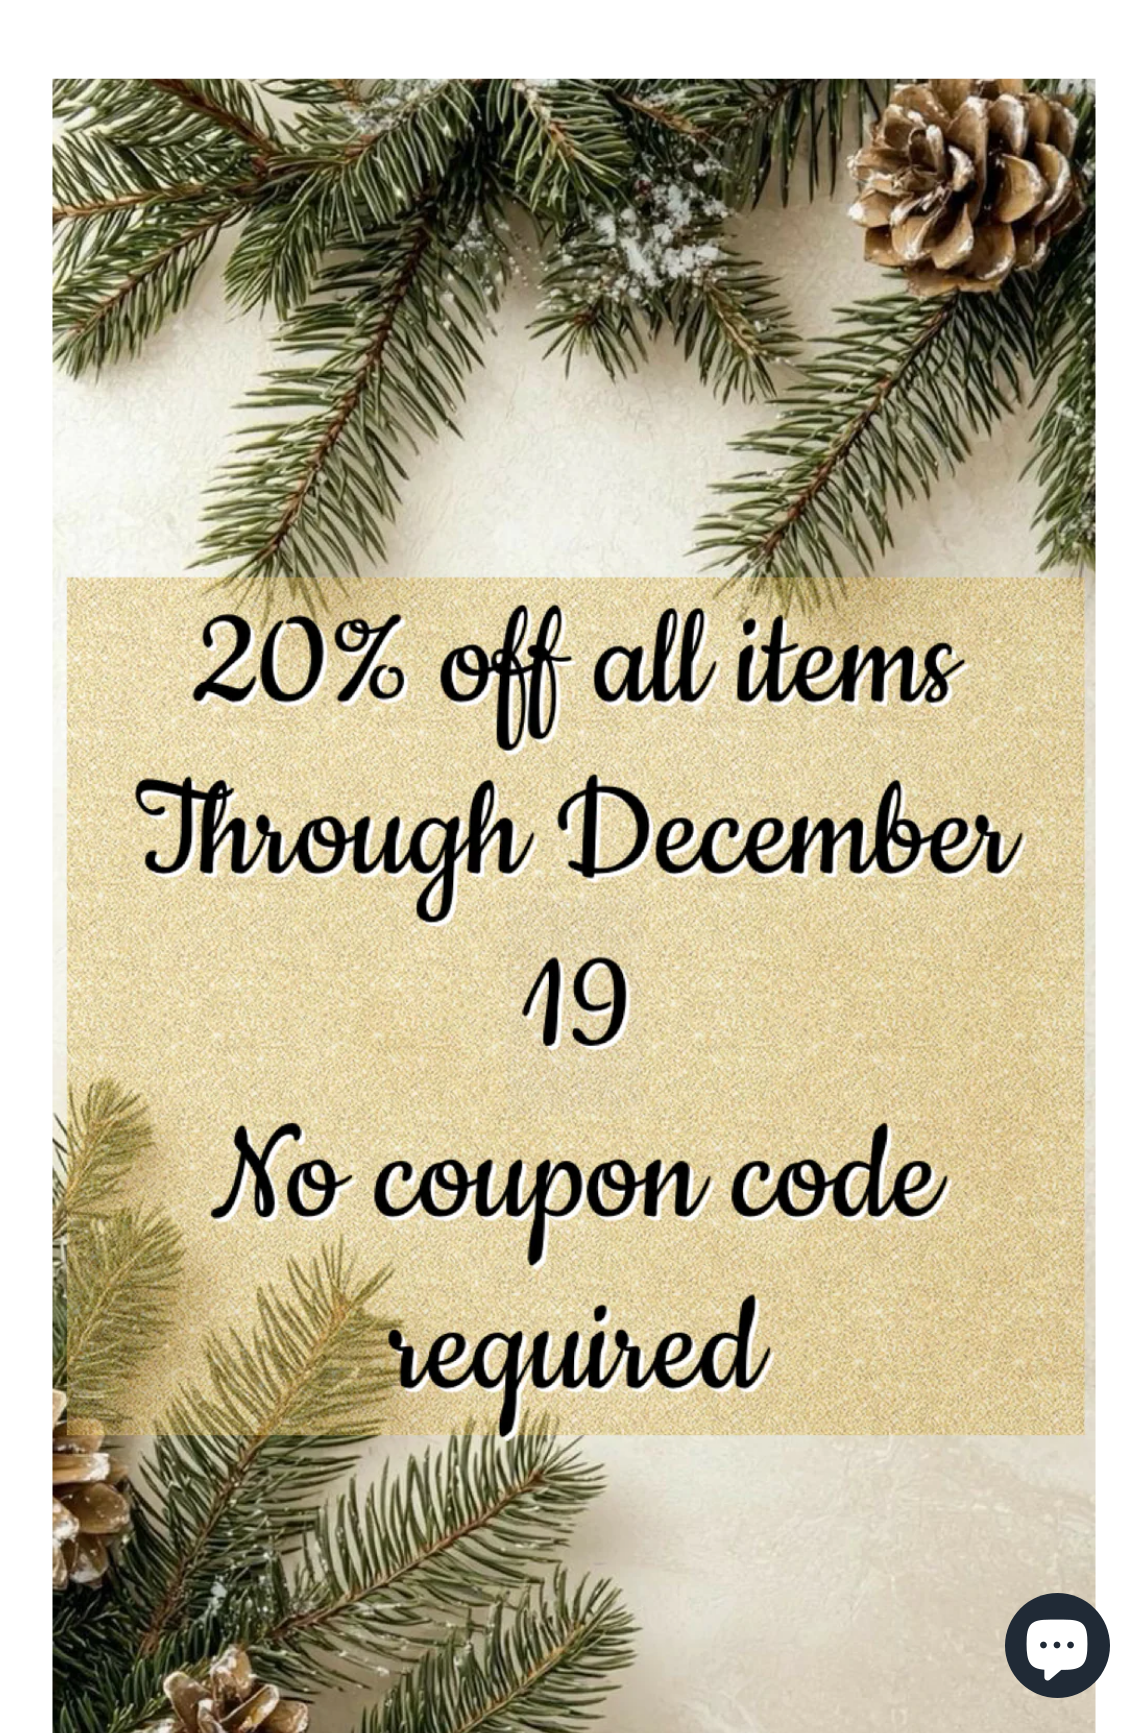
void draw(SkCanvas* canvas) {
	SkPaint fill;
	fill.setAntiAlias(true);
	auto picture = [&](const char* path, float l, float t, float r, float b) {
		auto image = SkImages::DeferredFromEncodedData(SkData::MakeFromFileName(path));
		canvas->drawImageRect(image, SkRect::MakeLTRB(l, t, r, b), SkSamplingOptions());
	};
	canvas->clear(0xFFFFFFFF);
	picture("image0.png", 52, 78, 1096, 1733);
	fill.setColor(0xFF202A36);
	canvas->drawCircle(1057.5f, 1645.5f, 52.5f, fill);
	picture("image1.png", 1026, 1619, 1088, 1681);
}
